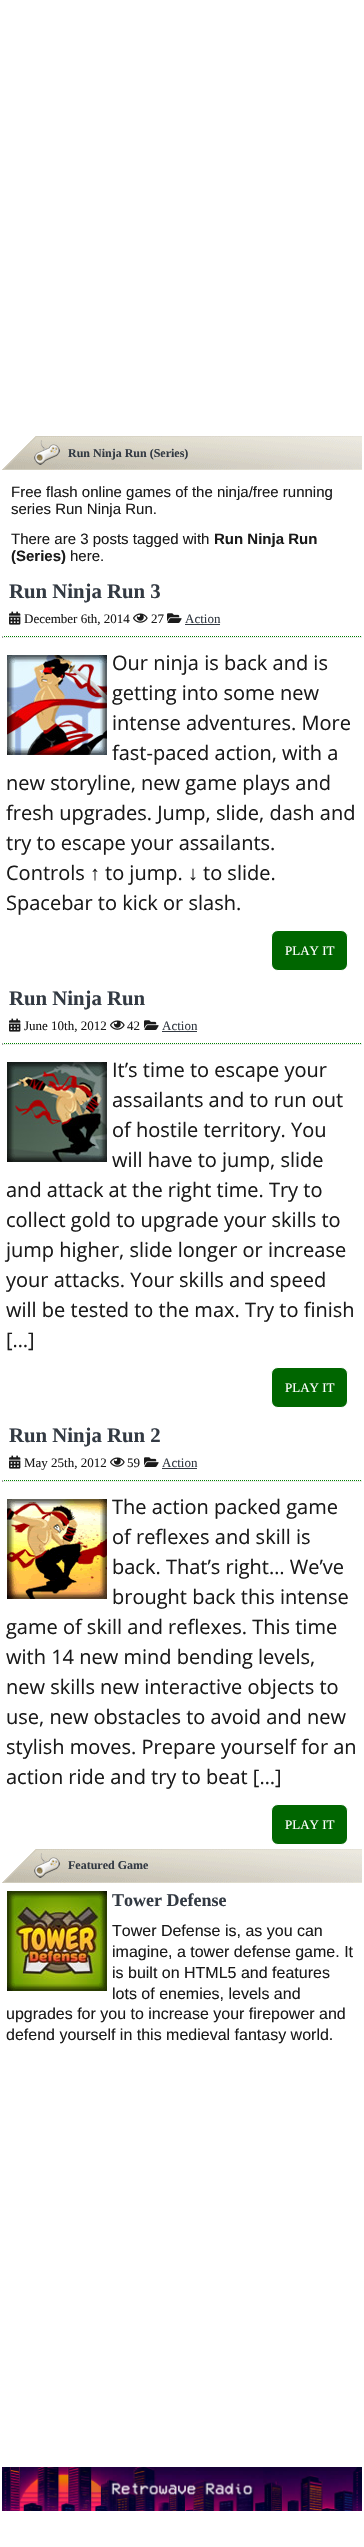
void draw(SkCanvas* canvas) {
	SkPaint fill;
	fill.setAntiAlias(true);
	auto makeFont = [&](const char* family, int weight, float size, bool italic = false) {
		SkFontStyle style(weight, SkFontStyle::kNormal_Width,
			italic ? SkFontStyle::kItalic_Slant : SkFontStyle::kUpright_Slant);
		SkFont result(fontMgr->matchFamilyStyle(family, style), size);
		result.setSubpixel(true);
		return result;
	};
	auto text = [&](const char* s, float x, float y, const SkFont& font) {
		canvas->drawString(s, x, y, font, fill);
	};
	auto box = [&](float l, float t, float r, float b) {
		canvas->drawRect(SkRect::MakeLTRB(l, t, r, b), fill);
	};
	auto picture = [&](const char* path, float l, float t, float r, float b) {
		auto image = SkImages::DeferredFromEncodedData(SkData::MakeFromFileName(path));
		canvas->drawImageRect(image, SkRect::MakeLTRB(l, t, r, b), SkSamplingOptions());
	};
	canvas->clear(0xFFFFFFFF);
	picture("image0.png", 2, 436, 362, 470);
	picture("image1.png", 9, 611, 21, 625);
	picture("image2.png", 133, 613, 148, 623);
	picture("image3.png", 167, 613, 182, 623);
	fill.setColor(0xFF333A43);
	box(185, 624, 220, 625);
	fill.setStyle(SkPaint::kStroke_Style);
	fill.setStrokeWidth(1);
	fill.setColor(0xFF008000);
	fill.setPathEffect(SkDashPathEffect::Make({{1, 1}}, 0));
	canvas->drawPath(SkPathBuilder().moveTo(2, 636.5f).lineTo(362, 636.5f).detach(), fill);
	fill.setPathEffect(nullptr);
	fill.setStyle(SkPaint::kFill_Style);
	fill.setColor(0xFFEEEEEE);
	box(361, 636, 362, 638);
	box(2, 637, 362, 638);
	fill.setColor(0xFF9F9F9F);
	box(2, 636, 3, 638);
	picture("image4.png", 7, 655, 107, 755);
	picture("image5.png", 7, 655, 107, 755);
	fill.setColor(0xFF006600);
	canvas->drawRoundRect(SkRect::MakeLTRB(271.5f, 930.5f, 347.5f, 970.5f), 6.5f, 6.5f, fill);
	fill.setStyle(SkPaint::kStroke_Style);
	fill.setColor(0xFFFFFFFF);
	canvas->drawRoundRect(SkRect::MakeLTRB(271.5f, 930.5f, 347.5f, 970.5f), 6.5f, 6.5f, fill);
	picture("image1.png", 9, 1018, 21, 1032);
	picture("image2.png", 110, 1020, 125, 1030);
	picture("image3.png", 144, 1020, 159, 1030);
	fill.setStyle(SkPaint::kFill_Style);
	fill.setColor(0xFF333A43);
	box(162, 1031, 197, 1032);
	fill.setStyle(SkPaint::kStroke_Style);
	fill.setColor(0xFF008000);
	fill.setPathEffect(SkDashPathEffect::Make({{1, 1}}, 0));
	canvas->drawPath(SkPathBuilder().moveTo(2, 1043.5f).lineTo(362, 1043.5f).detach(), fill);
	fill.setPathEffect(nullptr);
	fill.setStyle(SkPaint::kFill_Style);
	fill.setColor(0xFFEEEEEE);
	box(361, 1043, 362, 1045);
	box(2, 1044, 362, 1045);
	fill.setColor(0xFF9F9F9F);
	box(2, 1043, 3, 1045);
	picture("image6.png", 7, 1062, 107, 1162);
	picture("image7.png", 7, 1062, 107, 1162);
	fill.setColor(0xFF006600);
	canvas->drawRoundRect(SkRect::MakeLTRB(271.5f, 1367.5f, 347.5f, 1407.5f), 6.5f, 6.5f, fill);
	fill.setStyle(SkPaint::kStroke_Style);
	fill.setColor(0xFFFFFFFF);
	canvas->drawRoundRect(SkRect::MakeLTRB(271.5f, 1367.5f, 347.5f, 1407.5f), 6.5f, 6.5f, fill);
	picture("image1.png", 9, 1455, 21, 1469);
	picture("image2.png", 110, 1457, 125, 1467);
	picture("image3.png", 144, 1457, 159, 1467);
	fill.setStyle(SkPaint::kFill_Style);
	fill.setColor(0xFF333A43);
	box(162, 1468, 197, 1469);
	fill.setStyle(SkPaint::kStroke_Style);
	fill.setColor(0xFF008000);
	fill.setPathEffect(SkDashPathEffect::Make({{1, 1}}, 0));
	canvas->drawPath(SkPathBuilder().moveTo(2, 1480.5f).lineTo(362, 1480.5f).detach(), fill);
	fill.setPathEffect(nullptr);
	fill.setStyle(SkPaint::kFill_Style);
	fill.setColor(0xFFEEEEEE);
	box(361, 1480, 362, 1482);
	box(2, 1481, 362, 1482);
	fill.setColor(0xFF9F9F9F);
	box(2, 1480, 3, 1482);
	picture("image8.png", 7, 1499, 107, 1599);
	picture("image9.png", 7, 1499, 107, 1599);
	fill.setColor(0xFF006600);
	canvas->drawRoundRect(SkRect::MakeLTRB(271.5f, 1804.5f, 347.5f, 1844.5f), 6.5f, 6.5f, fill);
	fill.setStyle(SkPaint::kStroke_Style);
	fill.setColor(0xFFFFFFFF);
	canvas->drawRoundRect(SkRect::MakeLTRB(271.5f, 1804.5f, 347.5f, 1844.5f), 6.5f, 6.5f, fill);
	picture("image0.png", 2, 1849, 362, 1883);
	picture("image10.png", 7, 1891, 107, 1991);
	picture("image11.png", 7, 1891, 107, 1991);
	picture("image12.png", 2, 2467, 362, 2511);
	auto font1 = makeFont("Liberation Serif", 700, 12);
	fill.setStyle(SkPaint::kFill_Style);
	fill.setColor(0xFF333A43);
	text("Run Ninja Run (Series)", 68, 457, font1);
	auto font2 = makeFont("Liberation Sans", 400, 15);
	fill.setColor(0xFF1A1A1A);
	text("Free flash online games of the ninja/free running", 11, 497, font2);
	text("series Run Ninja Run.", 11, 514, font2);
	text("There are 3 posts tagged with", 11, 544, font2);
	auto font3 = makeFont("Liberation Sans", 700, 15);
	text("Run Ninja Run", 214, 544, font3);
	text("(Series)", 11, 561, font3);
	text("here.", 70, 561, font2);
	auto font4 = makeFont("Liberation Serif", 700, 20.75f);
	fill.setColor(0xFF333A43);
	text("Run Ninja Run 3", 9, 598, font4);
	auto font5 = makeFont("Liberation Serif", 400, 13);
	fill.setColor(0xFF1A1A1A);
	text("December 6th, 2014", 24, 623, font5);
	text("27", 151, 623, font5);
	fill.setColor(0xFF333A43);
	text("Action", 185, 623, font5);
	auto font6 = makeFont("Open Sans", 400, 20);
	fill.setColor(0xFF1A1A1A);
	text("Our ninja is back and is", 112, 670, font6);
	text("getting into some new", 112, 700, font6);
	text("intense adventures. More", 112, 730, font6);
	text("fast-paced action, with a", 112, 760, font6);
	text("new storyline, new game plays and", 6, 790, font6);
	text("fresh upgrades. Jump, slide, dash and", 6, 820, font6);
	text("try to escape your assailants.", 6, 850, font6);
	text("Controls", 6, 880, font6);
	auto font7 = makeFont("Liberation Sans", 400, 20);
	text("↑", 90, 880, font7);
	text("to jump.", 105, 880, font6);
	text("↓", 188, 880, font7);
	text("to slide.", 203, 880, font6);
	text("Spacebar to kick or slash.", 6, 910, font6);
	fill.setColor(0xFFFFFFFF);
	text("PLAY IT", 285, 955, font5);
	fill.setColor(0xFF333A43);
	text("Run Ninja Run", 9, 1005, font4);
	fill.setColor(0xFF1A1A1A);
	text("June 10th, 2012", 24, 1030, font5);
	text("42", 127, 1030, font5);
	fill.setColor(0xFF333A43);
	text("Action", 162, 1030, font5);
	fill.setColor(0xFF1A1A1A);
	text("It’s time to escape your", 112, 1077, font6);
	text("assailants and to run out", 112, 1107, font6);
	text("of hostile territory. You", 112, 1137, font6);
	text("will have to jump, slide", 112, 1167, font6);
	text("and attack at the right time. Try to", 6, 1197, font6);
	text("collect gold to upgrade your skills to", 6, 1227, font6);
	text("jump higher, slide longer or increase", 6, 1257, font6);
	text("your attacks. Your skills and speed", 6, 1287, font6);
	text("will be tested to the max. Try to finish", 6, 1317, font6);
	text("[…]", 6, 1347, font6);
	fill.setColor(0xFFFFFFFF);
	text("PLAY IT", 285, 1392, font5);
	fill.setColor(0xFF333A43);
	text("Run Ninja Run 2", 9, 1442, font4);
	fill.setColor(0xFF1A1A1A);
	text("May 25th, 2012", 24, 1467, font5);
	text("59", 127, 1467, font5);
	fill.setColor(0xFF333A43);
	text("Action", 162, 1467, font5);
	fill.setColor(0xFF1A1A1A);
	text("The action packed game", 112, 1514, font6);
	text("of reflexes and skill is", 112, 1544, font6);
	text("back. That’s right… We’ve", 112, 1574, font6);
	text("brought back this intense", 112, 1604, font6);
	text("game of skill and reflexes. This time", 6, 1634, font6);
	text("with 14 new mind bending levels,", 6, 1664, font6);
	text("new skills new interactive objects to", 6, 1694, font6);
	text("use, new obstacles to avoid and new", 6, 1724, font6);
	text("stylish moves. Prepare yourself for an", 6, 1754, font6);
	text("action ride and try to beat […]", 6, 1784, font6);
	fill.setColor(0xFFFFFFFF);
	text("PLAY IT", 285, 1829, font5);
	fill.setColor(0xFF333A43);
	text("Featured Game", 68, 1869, font1);
	auto font8 = makeFont("Liberation Serif", 700, 18);
	text("Tower Defense", 112, 1906, font8);
	auto font9 = makeFont("Liberation Sans", 400, 16);
	fill.setColor(0xFF1A1A1A);
	text("Tower Defense is, as you can", 112, 1936, font9);
	text("imagine, a tower defense game. It", 112, 1957, font9);
	text("is built on HTML5 and features", 112, 1978, font9);
	text("lots of enemies, levels and", 112, 1999, font9);
	text("upgrades for you to increase your firepower and", 6, 2019, font9);
	text("defend yourself in this medieval fantasy world.", 6, 2040, font9);
}
